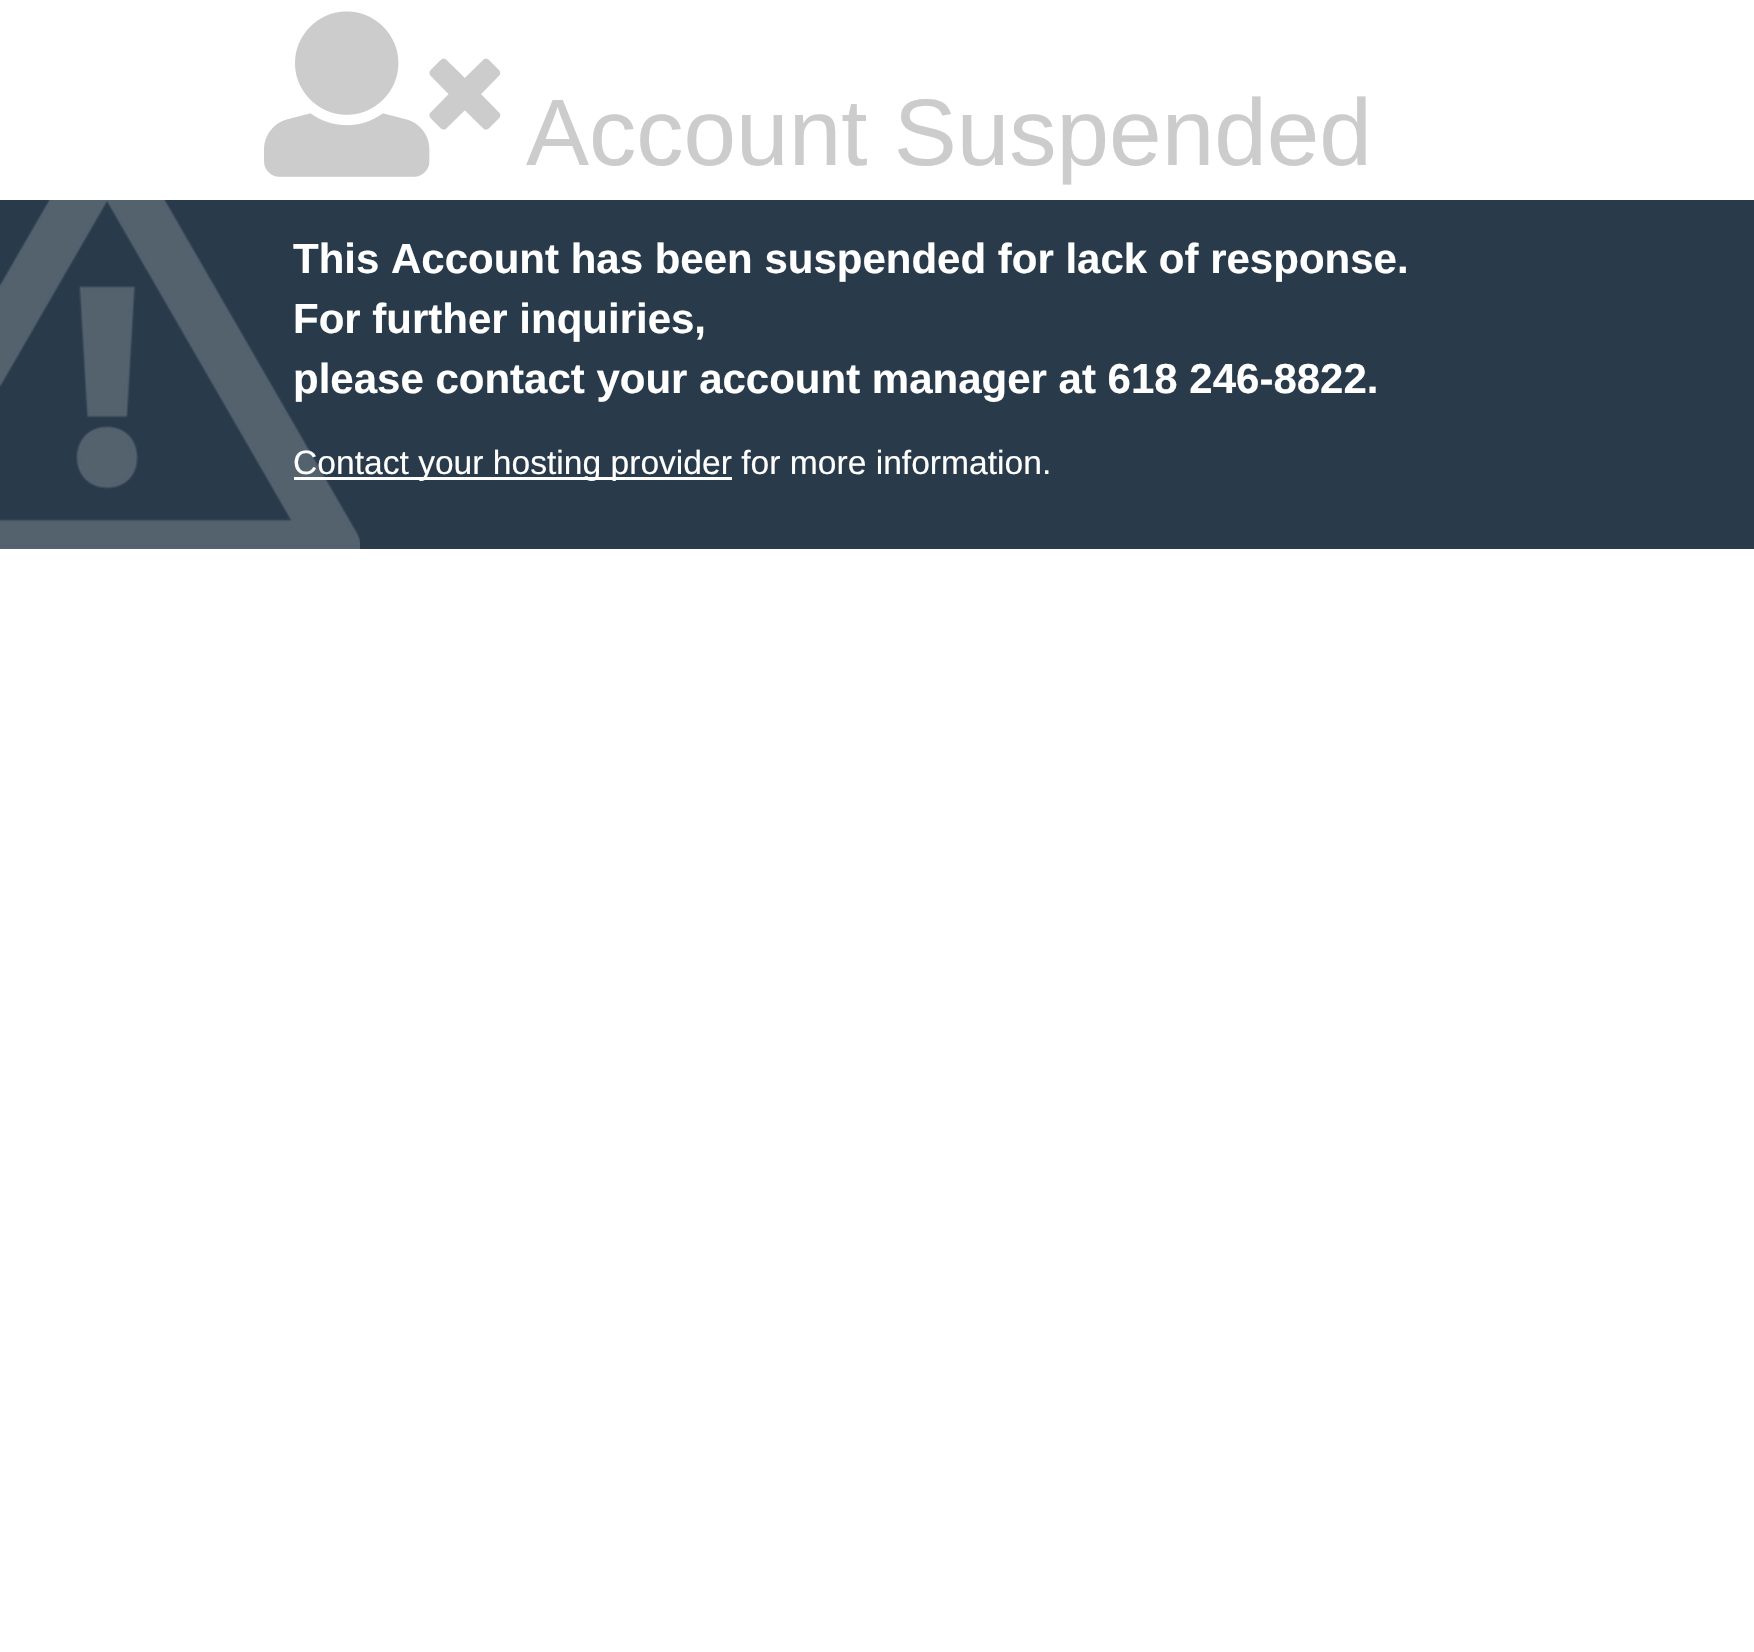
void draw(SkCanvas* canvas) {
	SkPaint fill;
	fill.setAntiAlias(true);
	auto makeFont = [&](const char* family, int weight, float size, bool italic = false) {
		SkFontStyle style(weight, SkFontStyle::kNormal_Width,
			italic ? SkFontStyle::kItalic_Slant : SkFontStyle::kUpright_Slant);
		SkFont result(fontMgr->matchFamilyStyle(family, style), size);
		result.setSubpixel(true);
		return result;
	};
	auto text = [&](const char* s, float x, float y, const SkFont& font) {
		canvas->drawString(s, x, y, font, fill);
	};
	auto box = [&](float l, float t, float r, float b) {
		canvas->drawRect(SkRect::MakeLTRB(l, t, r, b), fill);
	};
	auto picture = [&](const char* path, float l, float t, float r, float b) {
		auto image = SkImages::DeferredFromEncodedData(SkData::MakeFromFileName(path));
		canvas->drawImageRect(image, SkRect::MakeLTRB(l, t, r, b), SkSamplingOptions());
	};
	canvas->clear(0xFFFFFFFF);
	picture("image0.png", 264, 11, 501, 177);
	fill.setColor(0xFF293A4A);
	box(0, 200, 1754, 549);
	picture("image1.png", 0, 200, 360, 549);
	fill.setColor(0xFFFFFFFF);
	box(294, 477, 732, 480);
	auto font1 = makeFont("Liberation Sans", 400, 94.5f);
	fill.setColor(0xFFCCCCCC);
	text("Account Suspended", 526, 165, font1);
	auto font2 = makeFont("Liberation Sans", 700, 42);
	fill.setColor(0xFFFFFFFF);
	text("This Account has been suspended for lack of response.", 293, 273, font2);
	text("For further inquiries,", 293, 333, font2);
	text("please contact your account manager at 618 246-8822.", 293, 393, font2);
	auto font3 = makeFont("Liberation Sans", 400, 33.6f);
	text("Contact your hosting provider for more information.", 293, 474, font3);
}
